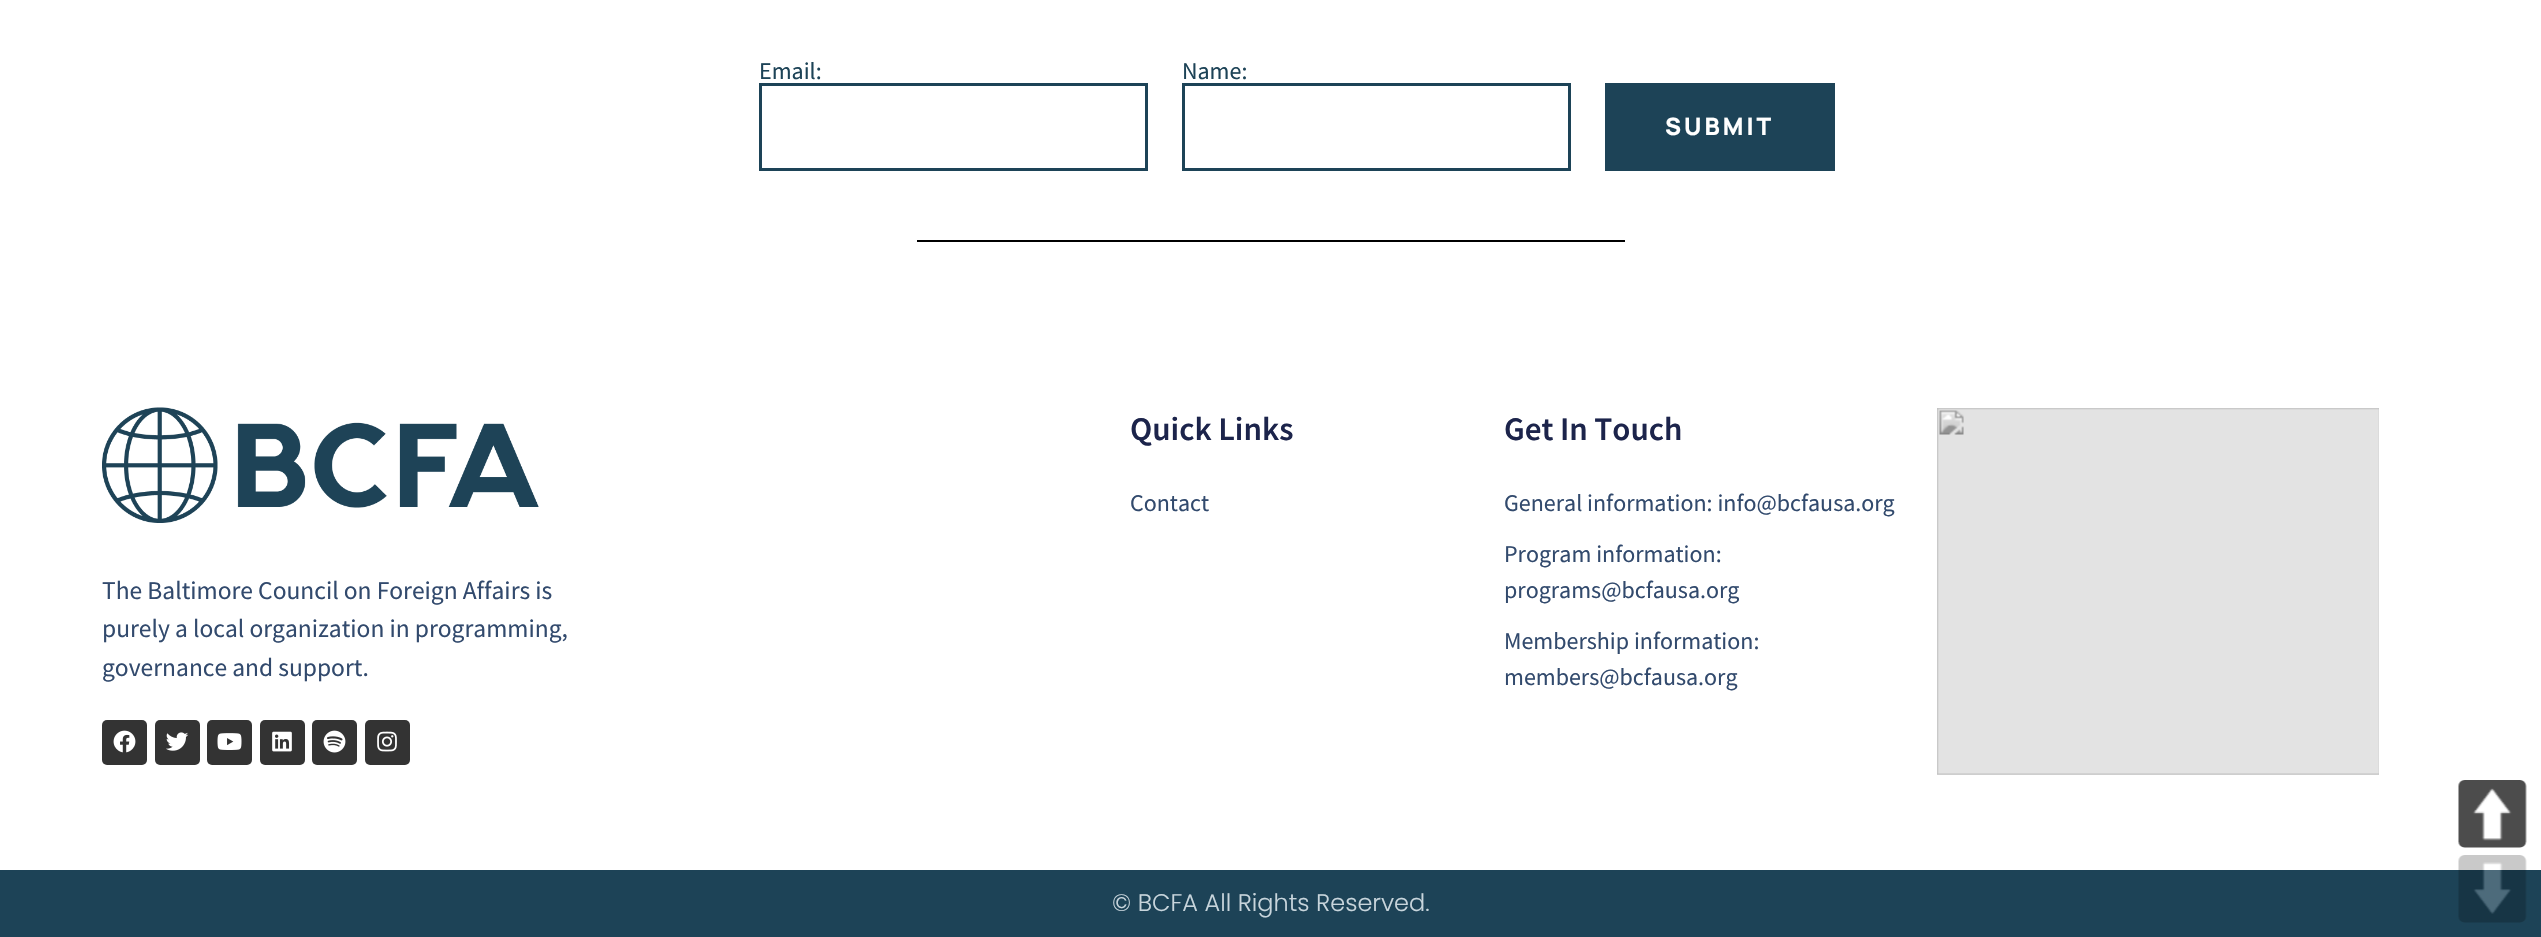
void draw(SkCanvas* canvas) {
	SkPaint fill;
	fill.setAntiAlias(true);
	auto makeFont = [&](const char* family, int weight, float size, bool italic = false) {
		SkFontStyle style(weight, SkFontStyle::kNormal_Width,
			italic ? SkFontStyle::kItalic_Slant : SkFontStyle::kUpright_Slant);
		SkFont result(fontMgr->matchFamilyStyle(family, style), size);
		result.setSubpixel(true);
		return result;
	};
	auto text = [&](const char* s, float x, float y, const SkFont& font) {
		canvas->drawString(s, x, y, font, fill);
	};
	auto spacedText = [&](const char* s, float x, float y, const SkFont& font, const SkPaint& ink, float letter, float word) {
		std::vector<SkGlyphID> glyphs(font.countText(s, strlen(s), SkTextEncoding::kUTF8));
		std::vector<float> xs(glyphs.size());
		font.textToGlyphs(s, strlen(s), SkTextEncoding::kUTF8, glyphs);
		font.getXPos(glyphs, xs, x);
		float extra = 0;
		for (size_t i = 0; i < glyphs.size(); i++) {
			xs[i] += extra;
			extra += letter + word * (glyphs[i] == font.unicharToGlyph(' '));
		}
		canvas->drawTextBlob(SkTextBlob::MakeFromPosHGlyphs(glyphs, xs, y, font), 0, 0, ink);
	};
	auto box = [&](float l, float t, float r, float b) {
		canvas->drawRect(SkRect::MakeLTRB(l, t, r, b), fill);
	};
	auto roundBox = [&](float l, float t, float r, float b, float radius) {
		canvas->drawRoundRect(SkRect::MakeLTRB(l, t, r, b), radius, radius, fill);
	};
	auto picture = [&](const char* path, float l, float t, float r, float b) {
		auto image = SkImages::DeferredFromEncodedData(SkData::MakeFromFileName(path));
		canvas->drawImageRect(image, SkRect::MakeLTRB(l, t, r, b), SkSamplingOptions());
	};
	canvas->clear(0xFFFFFFFF);
	fill.setStyle(SkPaint::kStroke_Style);
	fill.setStrokeWidth(3);
	fill.setColor(0xFF1D4357);
	canvas->drawRect(SkRect::MakeLTRB(760.5f, 84.5f, 1146.5f, 169.5f), fill);
	canvas->drawRect(SkRect::MakeLTRB(1183.5f, 84.5f, 1569.5f, 169.5f), fill);
	fill.setStyle(SkPaint::kFill_Style);
	box(1605, 83, 1835, 171);
	fill.setColor(0xFF000000);
	box(917, 240, 1625, 242);
	picture("image0.png", 102, 407, 539, 523);
	fill.setColor(0xFF333333);
	roundBox(102, 720, 147, 765, 5);
	picture("image1.png", 113, 730, 136, 753);
	roundBox(155, 720, 200, 765, 5);
	picture("image2.png", 166, 732, 189, 751);
	roundBox(207, 720, 252, 765, 5);
	picture("image3.png", 217, 733, 242, 750);
	roundBox(260, 720, 305, 765, 5);
	picture("image4.png", 272, 731, 292, 752);
	roundBox(312, 720, 357, 765, 5);
	picture("image5.png", 323, 730, 346, 753);
	roundBox(365, 720, 410, 765, 5);
	picture("image6.png", 377, 731, 397, 752);
	picture("image7.png", 1937, 408, 2379, 775);
	fill.setColor(0xFF1D4357);
	box(0, 870, 2541, 937);
	picture("image8.png", 2458, 780, 2527, 848);
	picture("image9.png", 2458, 855, 2527, 923);
	auto font1 = makeFont("Source Sans Pro", 400, 24);
	text("Email:", 759, 79, font1);
	text("Name:", 1182, 79, font1);
	auto font2 = makeFont("Manrope", 800, 24);
	fill.setColor(0xFFFFFFFF);
	spacedText("SUBMIT", 1665, 135, font2, fill, 3, 0);
	auto font3 = makeFont("Source Sans Pro", 400, 25.5f);
	fill.setColor(0xFF324A6D);
	text("The Baltimore Council on Foreign Affairs is", 102, 599, font3);
	text("purely a local organization in programming,", 102, 637, font3);
	text("governance and support.", 102, 676, font3);
	auto font4 = makeFont("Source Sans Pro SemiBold", 600, 33);
	fill.setColor(0xFF1C244B);
	text("Quick Links", 1130, 440, font4);
	fill.setColor(0xFF324A6D);
	text("Contact", 1130, 511, font1);
	fill.setColor(0xFF1C244B);
	text("Get In Touch", 1504, 440, font4);
	fill.setColor(0xFF324A6D);
	text("General information: info@bcfausa.org", 1504, 511, font1);
	text("Program information:", 1504, 562, font1);
	text("programs@bcfausa.org", 1504, 598, font1);
	text("Membership information:", 1504, 649, font1);
	text("members@bcfausa.org", 1504, 685, font1);
	auto font5 = makeFont("Poppins", 300, 24);
	fill.setColor(0xFFC8D5DC);
	text("© BCFA All Rights Reserved.", 1112, 911, font5);
}
